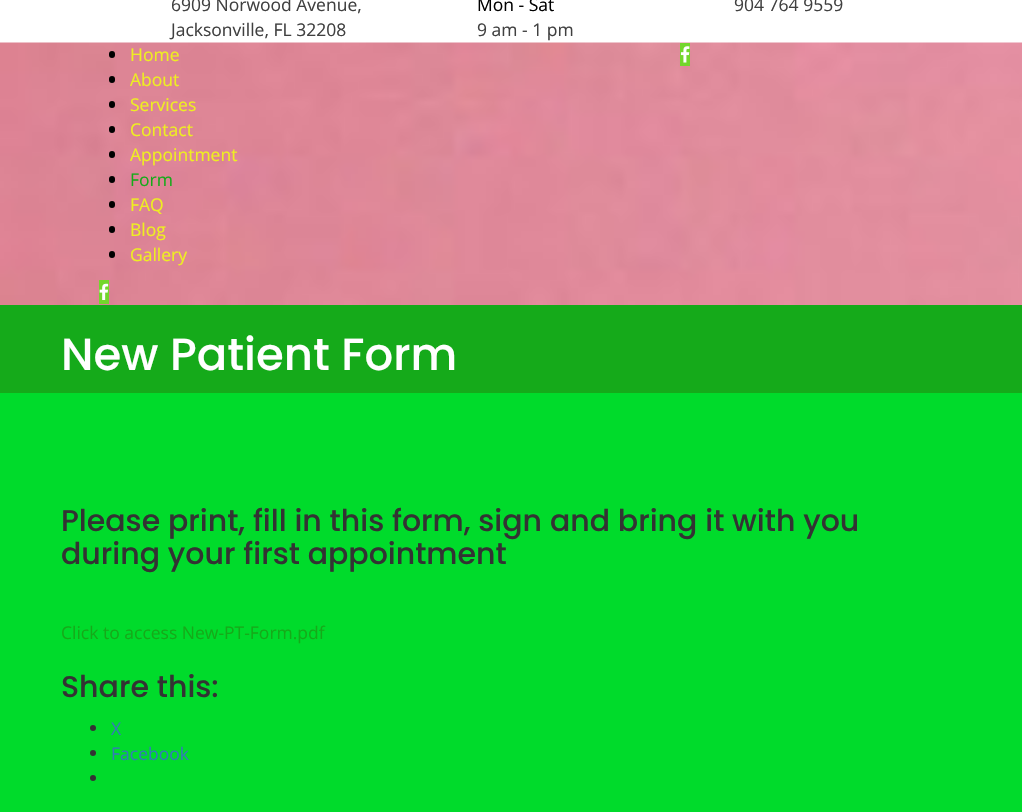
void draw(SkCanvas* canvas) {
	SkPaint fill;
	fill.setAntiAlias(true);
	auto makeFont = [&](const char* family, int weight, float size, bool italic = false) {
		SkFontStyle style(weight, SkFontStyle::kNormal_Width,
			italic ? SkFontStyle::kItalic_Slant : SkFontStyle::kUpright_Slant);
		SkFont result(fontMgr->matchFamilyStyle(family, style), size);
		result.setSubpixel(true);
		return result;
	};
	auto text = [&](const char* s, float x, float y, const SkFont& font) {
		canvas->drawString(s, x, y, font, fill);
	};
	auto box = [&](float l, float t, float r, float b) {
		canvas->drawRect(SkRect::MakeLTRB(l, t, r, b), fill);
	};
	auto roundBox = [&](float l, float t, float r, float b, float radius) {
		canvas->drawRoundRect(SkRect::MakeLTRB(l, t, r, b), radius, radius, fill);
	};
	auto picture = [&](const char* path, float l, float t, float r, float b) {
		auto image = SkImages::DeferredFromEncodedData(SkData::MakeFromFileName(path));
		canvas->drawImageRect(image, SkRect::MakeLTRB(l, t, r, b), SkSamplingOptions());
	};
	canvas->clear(0xFFFFFFFF);
	picture("image0.png", 0, 42, 1022, 305);
	fill.setColor(0xFF000000);
	roundBox(109, 51, 115, 58, 3);
	roundBox(109, 76, 115, 83, 3);
	roundBox(109, 101, 115, 108, 3);
	roundBox(109, 126, 115, 133, 3);
	roundBox(109, 151, 115, 158, 3);
	roundBox(109, 176, 115, 183, 3);
	roundBox(109, 201, 115, 208, 3);
	roundBox(109, 226, 115, 233, 3);
	roundBox(109, 251, 115, 258, 3);
	fill.setColor(0xFF73D62C);
	box(99, 280, 109, 304);
	picture("image1.png", 99, 283, 109, 300);
	box(680, 43, 690, 66);
	picture("image2.png", 680, 46, 690, 63);
	fill.setColor(0xFF15AA1A);
	box(0, 305, 1022, 393);
	fill.setColor(0xFF00DB2B);
	box(0, 393, 1022, 812);
	fill.setColor(0xFF333333);
	canvas->drawCircle(93, 728, 3, fill);
	canvas->drawCircle(93, 753, 3, fill);
	canvas->drawCircle(93, 778, 3, fill);
	auto font1 = makeFont("Open Sans", 400, 17.5f);
	fill.setColor(0xFF404040);
	text("6909 Norwood Avenue,", 171, 11, font1);
	text("Jacksonville, FL 32208", 171, 36, font1);
	fill.setColor(0xFF000000);
	text("Mon - Sat", 477, 11, font1);
	fill.setColor(0xFF404040);
	text("9 am - 1 pm", 477, 36, font1);
	text("904 764 9559", 734, 11, font1);
	fill.setColor(0xFFEEEE22);
	text("Home", 130, 61, font1);
	text("About", 130, 86, font1);
	text("Services", 130, 111, font1);
	text("Contact", 130, 136, font1);
	text("Appointment", 130, 161, font1);
	fill.setColor(0xFF15AA19);
	text("Form", 130, 186, font1);
	fill.setColor(0xFFEEEE22);
	text("FAQ", 130, 211, font1);
	text("Blog", 130, 236, font1);
	text("Gallery", 130, 261, font1);
	auto font2 = makeFont("Poppins", 500, 45);
	fill.setColor(0xFFFFFFFF);
	text("New Patient Form", 61, 370, font2);
	auto font3 = makeFont("Poppins", 500, 30);
	fill.setColor(0xFF333333);
	text("Please print, fill in this form, sign and bring it with you", 61, 531, font3);
	text("during your first appointment", 61, 564, font3);
	fill.setColor(0xFF15AA19);
	text("Click to access New-PT-Form.pdf", 61, 639, font1);
	fill.setColor(0xFF333333);
	text("Share this:", 61, 697, font3);
	fill.setColor(0xFF337AB7);
	text("X", 111, 735, font1);
	text("Facebook", 111, 760, font1);
}
